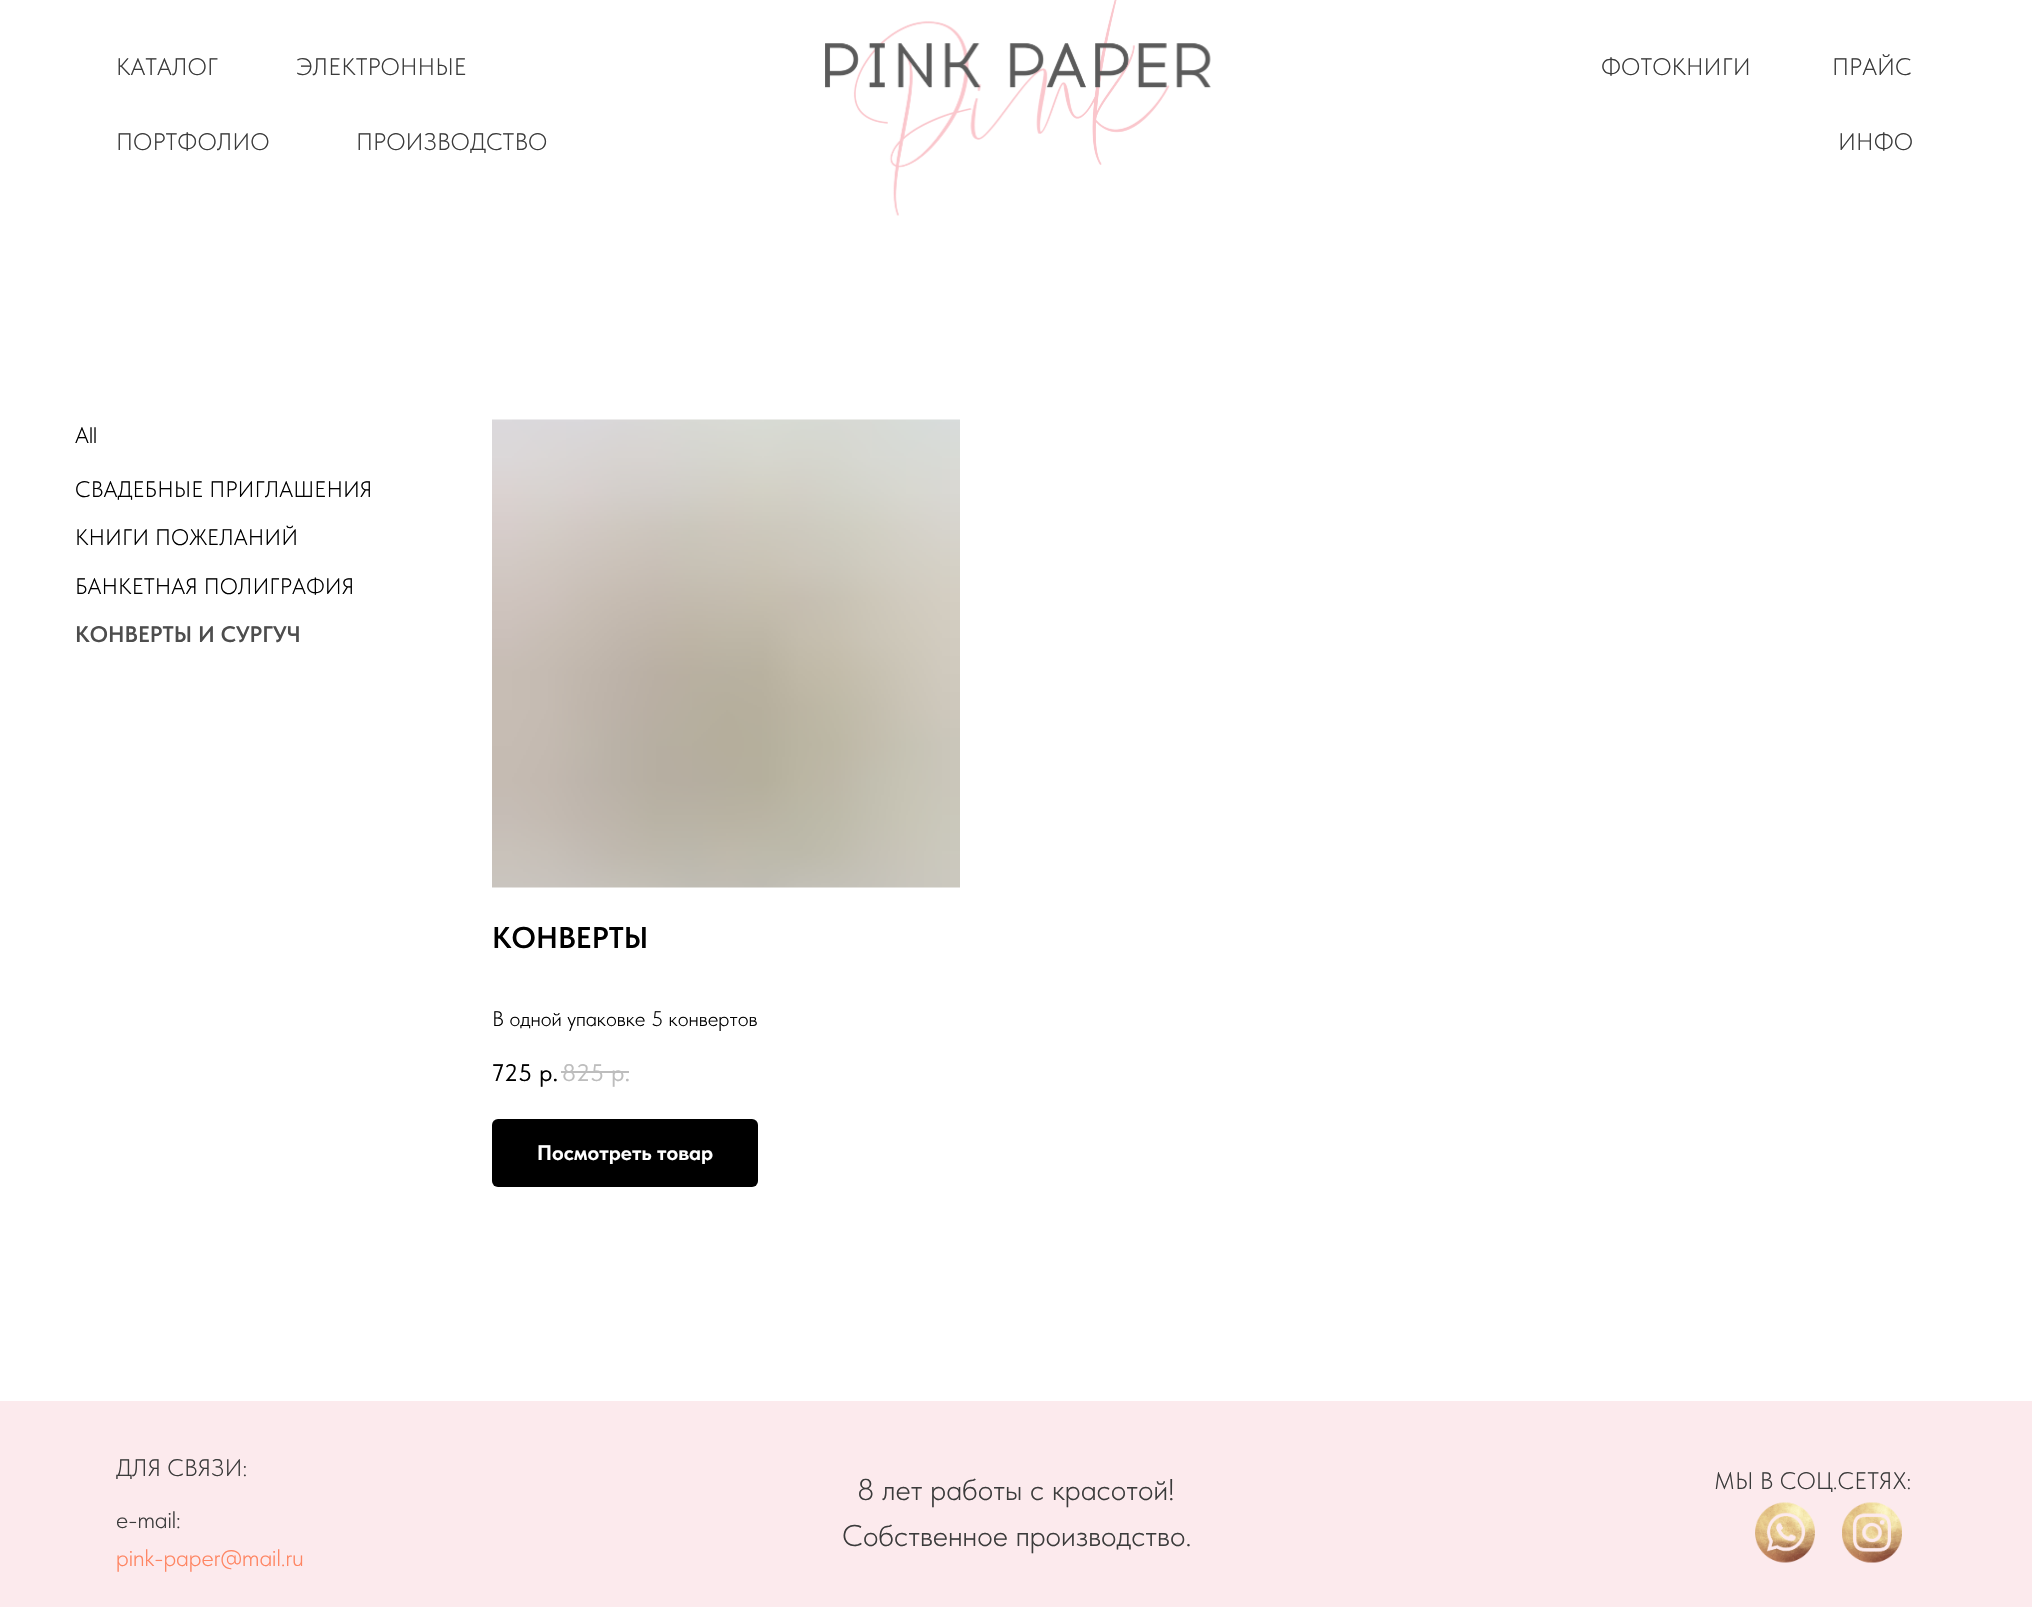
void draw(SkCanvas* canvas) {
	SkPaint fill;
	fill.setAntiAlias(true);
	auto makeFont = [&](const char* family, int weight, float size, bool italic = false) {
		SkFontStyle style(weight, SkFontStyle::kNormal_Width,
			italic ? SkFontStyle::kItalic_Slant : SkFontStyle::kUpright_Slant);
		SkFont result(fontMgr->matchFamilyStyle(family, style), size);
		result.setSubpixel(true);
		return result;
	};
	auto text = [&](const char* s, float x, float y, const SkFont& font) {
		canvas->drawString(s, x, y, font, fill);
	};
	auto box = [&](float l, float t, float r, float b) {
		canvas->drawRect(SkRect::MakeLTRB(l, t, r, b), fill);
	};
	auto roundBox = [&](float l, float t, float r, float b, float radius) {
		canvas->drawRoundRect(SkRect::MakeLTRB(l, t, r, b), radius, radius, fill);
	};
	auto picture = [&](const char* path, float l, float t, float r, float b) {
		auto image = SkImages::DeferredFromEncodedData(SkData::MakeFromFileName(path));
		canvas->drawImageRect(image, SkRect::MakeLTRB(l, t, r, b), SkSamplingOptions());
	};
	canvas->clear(0xFFFFFFFF);
	picture("image0.png", 825, 0, 1211, 216);
	picture("image1.png", 492, 419, 960, 888);
	fill.setColor(0xFFBDBDBD);
	box(561, 1071, 629, 1073);
	fill.setColor(0xFF000000);
	roundBox(492, 1119, 758, 1187, 6);
	fill.setColor(0xFFFCEAED);
	box(0, 1401, 2032, 1607);
	picture("image2.png", 1755, 1502, 1815, 1563);
	picture("image3.png", 1842, 1502, 1902, 1563);
	auto font1 = makeFont("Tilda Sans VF", 300, 24);
	fill.setColor(0xFF3B3B3B);
	text("КАТАЛОГ", 116, 75, font1);
	text("ЭЛЕКТРОННЫЕ", 296, 75, font1);
	text("ФОТОКНИГИ", 1601, 75, font1);
	text("ПРАЙС", 1832, 75, font1);
	text("ПОРТФОЛИО", 116, 150, font1);
	text("ПРОИЗВОДСТВО", 356, 150, font1);
	text("ИНФО", 1838, 150, font1);
	auto font2 = makeFont("Tilda Sans VF", 300, 22.5f);
	fill.setColor(0xFF000000);
	text("All", 75, 443, font2);
	text("СВАДЕБНЫЕ ПРИГЛАШЕНИЯ", 75, 497, font2);
	text("КНИГИ ПОЖЕЛАНИЙ", 75, 545, font2);
	text("БАНКЕТНАЯ ПОЛИГРАФИЯ", 75, 594, font2);
	auto font3 = makeFont("Tilda Sans VF", 600, 22.5f);
	fill.setColor(0xFF4D4D4D);
	text("КОНВЕРТЫ И СУРГУЧ", 75, 642, font3);
	auto font4 = makeFont("Tilda Sans VF", 600, 30);
	fill.setColor(0xFF000000);
	text("КОНВЕРТЫ", 492, 948, font4);
	auto font5 = makeFont("Tilda Sans VF", 300, 21);
	text("В одной упаковке 5 конвертов", 492, 1026, font5);
	auto font6 = makeFont("Tilda Sans VF", 400, 24);
	text("725", 492, 1081, font6);
	text("р.", 539, 1081, font6);
	fill.setColor(0xFFBDBDBD);
	text("825", 562, 1081, font6);
	text("р.", 611, 1081, font6);
	canvas->save();
	canvas->clipRect(SkRect::MakeLTRB(537, 1140, 713, 1164));
	auto font7 = makeFont("Tilda Sans VF", 700, 21);
	fill.setColor(0xFFFFFFFF);
	text("Посмотреть товар", 537, 1160, font7);
	canvas->restore();
	fill.setColor(0xFF3B3B3B);
	text("ДЛЯ СВЯЗИ:", 116, 1476, font1);
	auto font8 = makeFont("Tilda Sans VF", 300, 30);
	text("8 лет работы с красотой!", 857, 1500, font8);
	text("Собственное производство.", 842, 1546, font8);
	text("МЫ В СОЦ.СЕТЯХ:", 1714, 1489, font1);
	text("e-mail:", 116, 1528, font1);
	fill.setColor(0xFFFF8562);
	text("pink-paper@mail.ru", 116, 1566, font1);
}
